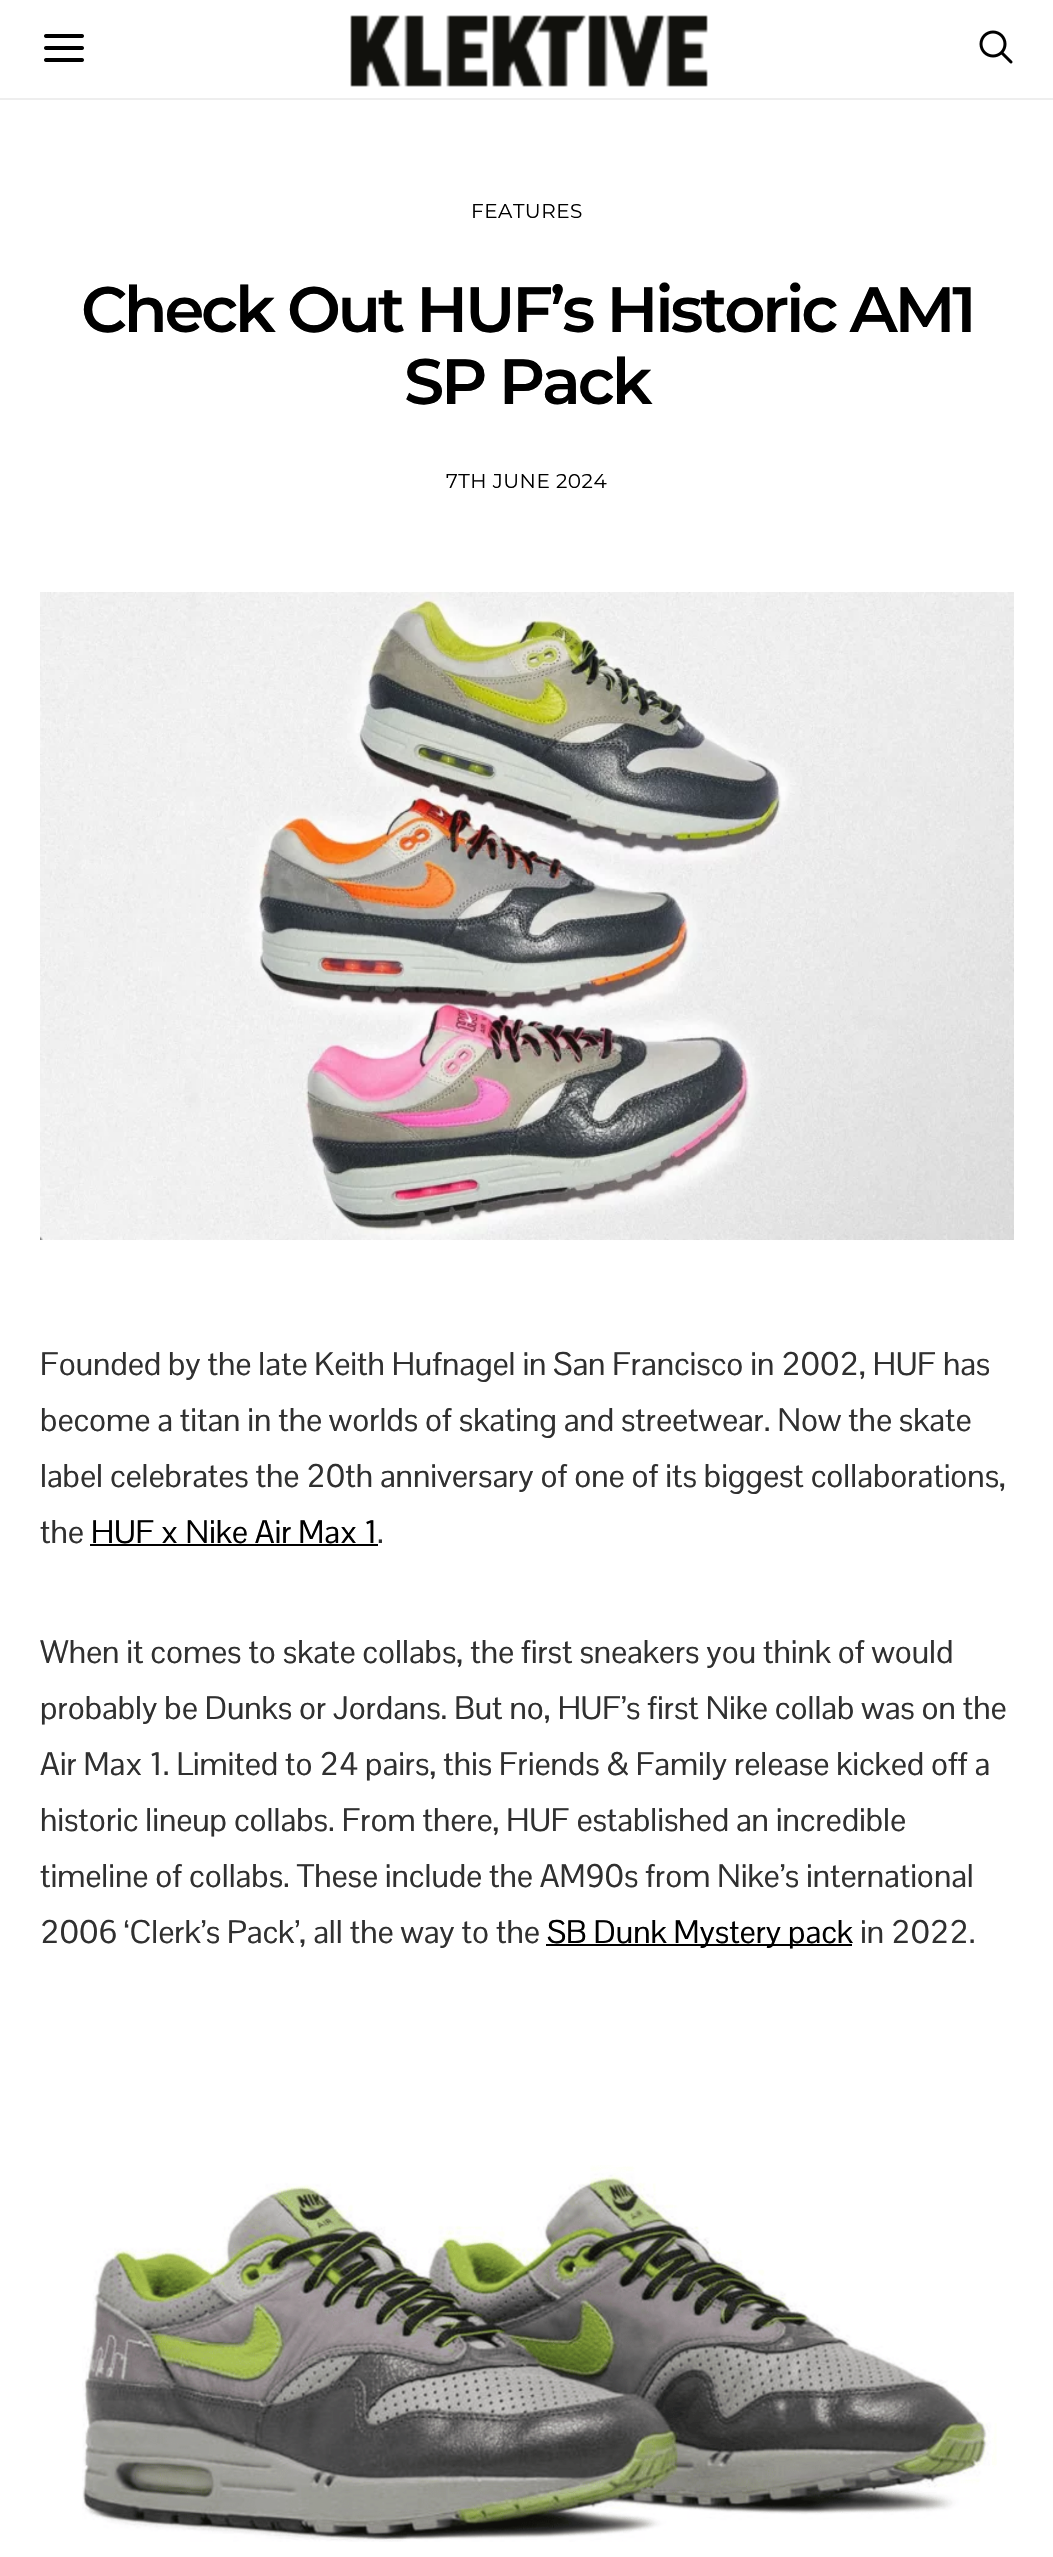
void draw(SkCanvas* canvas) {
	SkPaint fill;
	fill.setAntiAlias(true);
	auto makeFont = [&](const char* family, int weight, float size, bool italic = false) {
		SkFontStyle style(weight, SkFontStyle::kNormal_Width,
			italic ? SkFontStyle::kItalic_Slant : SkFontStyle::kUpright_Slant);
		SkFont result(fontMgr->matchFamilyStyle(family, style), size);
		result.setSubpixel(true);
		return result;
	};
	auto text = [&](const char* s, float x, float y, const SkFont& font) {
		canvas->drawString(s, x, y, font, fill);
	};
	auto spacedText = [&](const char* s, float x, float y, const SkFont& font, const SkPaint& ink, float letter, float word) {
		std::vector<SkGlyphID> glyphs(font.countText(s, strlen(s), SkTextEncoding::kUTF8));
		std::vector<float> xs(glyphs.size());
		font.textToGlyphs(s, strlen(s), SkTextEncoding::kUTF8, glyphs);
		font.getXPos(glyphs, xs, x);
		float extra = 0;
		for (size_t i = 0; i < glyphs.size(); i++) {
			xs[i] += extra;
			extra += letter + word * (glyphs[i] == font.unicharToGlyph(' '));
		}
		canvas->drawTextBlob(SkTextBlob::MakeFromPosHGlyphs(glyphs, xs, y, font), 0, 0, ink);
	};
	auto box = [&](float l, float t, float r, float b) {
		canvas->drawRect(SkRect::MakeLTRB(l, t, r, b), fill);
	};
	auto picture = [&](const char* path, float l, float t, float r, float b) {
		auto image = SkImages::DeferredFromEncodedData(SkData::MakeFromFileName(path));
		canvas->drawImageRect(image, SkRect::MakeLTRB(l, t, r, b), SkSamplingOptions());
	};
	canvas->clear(0xFFFFFFFF);
	fill.setColor(0xFFEEEEEE);
	box(0, 98, 1053, 100);
	picture("image0.png", 44, 34, 84, 62);
	picture("image1.png", 350, 15, 708, 87);
	picture("image2.png", 979, 30, 1013, 64);
	picture("image3.png", 40, 592, 1014, 1240);
	fill.setColor(0xFF000000);
	box(90, 1544, 378, 1546);
	box(546, 1944, 852, 1946);
	picture("image4.png", 82, 2165, 997, 2542);
	auto font1 = makeFont("Montserrat", 400, 20);
	spacedText("FEATURES", 471, 218, font1, fill, 0.5f, 0);
	auto font2 = makeFont("Montserrat", 600, 64);
	spacedText("Check Out HUF’s Historic AM1", 81, 332, font2, fill, -3.2f, 0);
	spacedText("SP Pack", 404, 404, font2, fill, -3.2f, 0);
	spacedText("7TH JUNE 2024", 446, 488, font1, fill, 0.5f, 0);
	auto font3 = makeFont("Pontano Sans", 400, 32);
	fill.setColor(0xFF303030);
	text("Founded by the late Keith Hufnagel in San Francisco in 2002, HUF has", 40, 1375, font3);
	text("become a titan in the worlds of skating and streetwear. Now the skate", 40, 1431, font3);
	text("label celebrates the 20th anniversary of one of its biggest collaborations,", 40, 1487, font3);
	text("the", 40, 1543, font3);
	fill.setColor(0xFF000000);
	text("HUF x Nike Air Max 1", 91, 1543, font3);
	fill.setColor(0xFF303030);
	text(".", 377, 1543, font3);
	text("When it comes to skate collabs, the first sneakers you think of would", 40, 1663, font3);
	text("probably be Dunks or Jordans. But no, HUF’s first Nike collab was on the", 40, 1719, font3);
	text("Air Max 1. Limited to 24 pairs, this Friends & Family release kicked off a", 40, 1775, font3);
	text("historic lineup collabs. From there, HUF established an incredible", 40, 1831, font3);
	text("timeline of collabs. These include the AM90s from Nike’s international", 40, 1887, font3);
	text("2006 ‘Clerk’s Pack’, all the way to the", 40, 1943, font3);
	fill.setColor(0xFF000000);
	text("SB Dunk Mystery pack", 547, 1943, font3);
	fill.setColor(0xFF303030);
	text("in 2022.", 860, 1943, font3);
}
